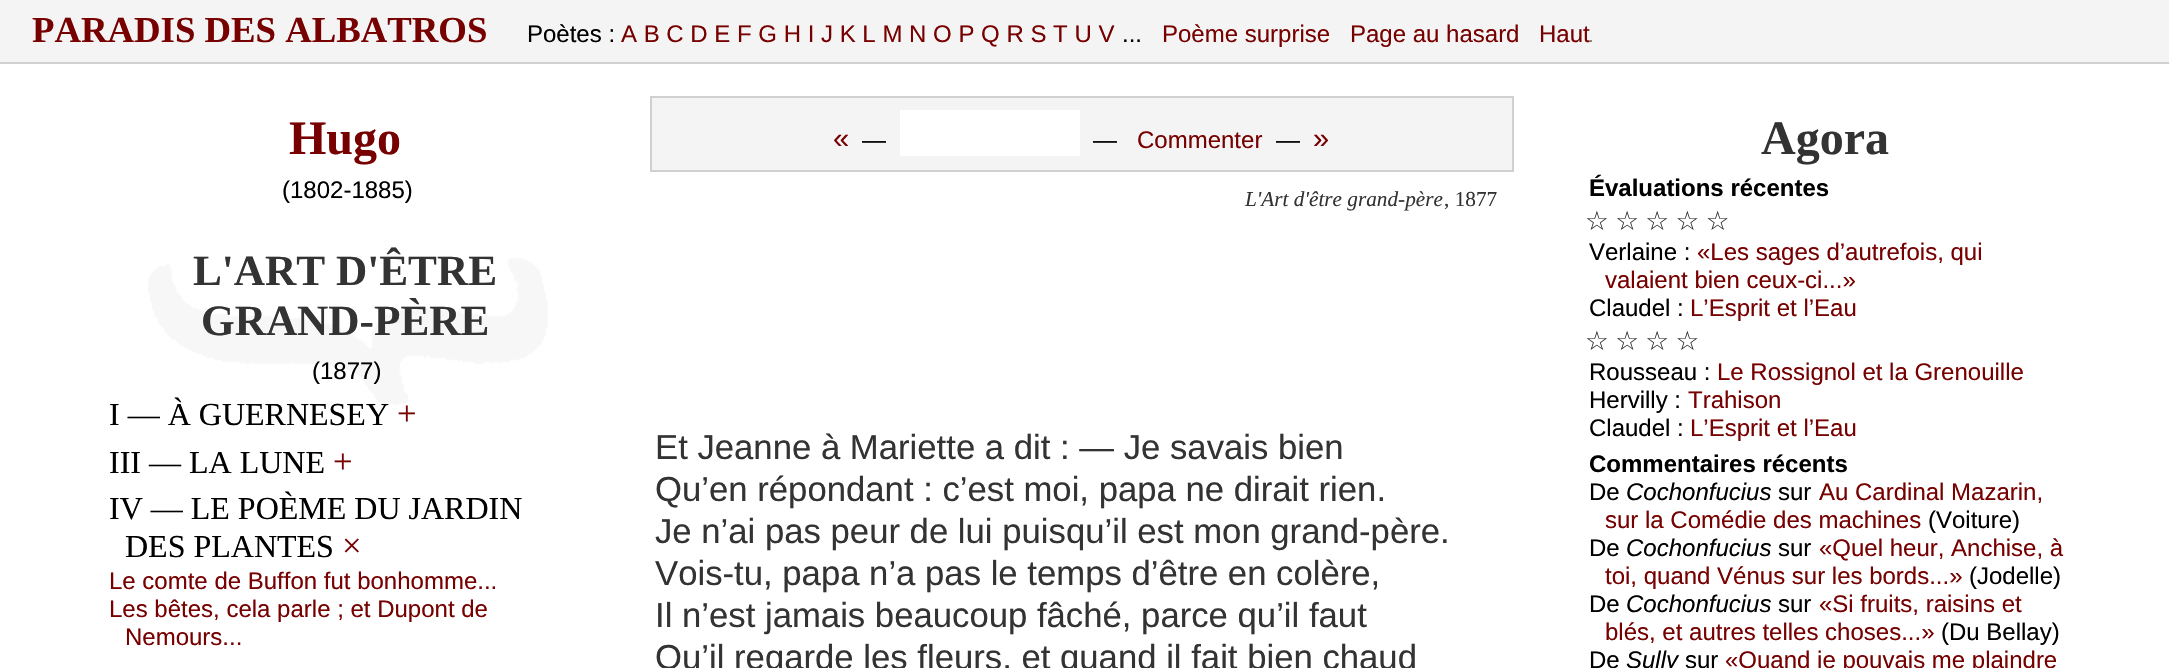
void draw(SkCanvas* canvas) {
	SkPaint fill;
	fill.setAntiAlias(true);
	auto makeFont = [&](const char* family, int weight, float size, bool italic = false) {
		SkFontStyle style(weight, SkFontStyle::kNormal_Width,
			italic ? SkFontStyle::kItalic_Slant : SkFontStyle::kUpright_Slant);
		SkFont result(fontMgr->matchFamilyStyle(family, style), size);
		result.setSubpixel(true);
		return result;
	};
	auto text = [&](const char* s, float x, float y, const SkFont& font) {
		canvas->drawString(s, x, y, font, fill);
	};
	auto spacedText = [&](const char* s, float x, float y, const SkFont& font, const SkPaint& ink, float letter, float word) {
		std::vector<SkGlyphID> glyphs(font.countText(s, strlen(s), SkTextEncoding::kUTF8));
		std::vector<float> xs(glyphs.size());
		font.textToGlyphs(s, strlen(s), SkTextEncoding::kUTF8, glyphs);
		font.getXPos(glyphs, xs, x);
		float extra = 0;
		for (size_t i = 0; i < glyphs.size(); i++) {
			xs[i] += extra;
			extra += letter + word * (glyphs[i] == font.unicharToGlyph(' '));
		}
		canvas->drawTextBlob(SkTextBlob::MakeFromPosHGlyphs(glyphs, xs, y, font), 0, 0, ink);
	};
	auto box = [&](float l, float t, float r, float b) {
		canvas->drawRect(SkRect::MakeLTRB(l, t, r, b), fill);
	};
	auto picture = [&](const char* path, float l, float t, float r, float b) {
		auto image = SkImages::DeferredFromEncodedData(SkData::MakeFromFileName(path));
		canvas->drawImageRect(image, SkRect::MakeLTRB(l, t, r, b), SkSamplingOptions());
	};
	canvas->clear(0xFFFFFFFF);
	fill.setColor(0xFFF4F4F4);
	box(0, 0, 2169, 62);
	fill.setColor(0xFFD0D0D0);
	box(0, 62, 2169, 64);
	picture("image0.png", 1590, 40, 1592, 42);
	picture("image1.png", 148, 258, 548, 406);
	fill.setColor(0xFFF4F4F4);
	canvas->drawRect(SkRect::MakeLTRB(651, 97, 1513, 171), fill);
	fill.setStyle(SkPaint::kStroke_Style);
	fill.setStrokeWidth(2);
	fill.setColor(0xFFD0D0D0);
	canvas->drawRect(SkRect::MakeLTRB(651, 97, 1513, 171), fill);
	fill.setStyle(SkPaint::kFill_Style);
	fill.setColor(0xFFFFFFFF);
	box(900, 110, 1080, 156);
	auto font1 = makeFont("Liberation Serif", 700, 36.75f);
	fill.setColor(0xFF770000);
	text("PARADIS DES ALBATROS", 32, 42, font1);
	auto font2 = makeFont("Liberation Sans", 400, 24);
	fill.setColor(0xFF000000);
	text("Poètes :", 527, 42, font2);
	fill.setColor(0xFF770000);
	text("A B C D E F G H I J K L M N O P Q R S T U V", 621, 42, font2);
	fill.setColor(0xFF000000);
	text("...", 1122, 42, font2);
	fill.setColor(0xFF770000);
	text("Poème surprise", 1162, 42, font2);
	text("Page au hasard", 1350, 42, font2);
	text("Haut", 1539, 42, font2);
	auto font3 = makeFont("Liberation Serif", 700, 48);
	text("Hugo", 289, 154, font3);
	fill.setColor(0xFF000000);
	text("(1802-1885)", 282, 198, font2);
	auto font4 = makeFont("Liberation Serif", 700, 43.25f);
	fill.setColor(0xFF333333);
	text("L'ART D'ÊTRE", 193, 285, font4);
	text("GRAND-PÈRE", 201, 335, font4);
	fill.setColor(0xFF000000);
	text("(1877)", 312, 379, font2);
	auto font5 = makeFont("Liberation Serif", 400, 32);
	text("I — À GUERNESEY", 109, 425, font5);
	auto font6 = makeFont("Liberation Serif", 400, 34.7f);
	fill.setColor(0xFF770000);
	text("+", 397, 425, font6);
	fill.setColor(0xFF000000);
	text("III — LA LUNE", 109, 473, font5);
	fill.setColor(0xFF770000);
	text("+", 333, 473, font6);
	fill.setColor(0xFF000000);
	text("IV — LE POÈME DU JARDIN", 109, 519, font5);
	text("DES PLANTES", 125, 557, font5);
	fill.setColor(0xFF770000);
	text("×", 342, 557, font6);
	text("Lе соmtе dе Βuffоn fut bоnhоmmе...", 109, 589, font2);
	text("Lеs bêtеs, сеlа pаrlе ; еt Dupоnt dе", 109, 617, font2);
	text("Νеmоurs...", 125, 645, font2);
	auto font7 = makeFont("Liberation Sans", 400, 29);
	text("«", 833, 148, font7);
	fill.setColor(0xFF000000);
	text("—", 862, 148, font2);
	text("—", 1093, 148, font2);
	fill.setColor(0xFF770000);
	text("Commenter", 1137, 148, font2);
	fill.setColor(0xFF000000);
	text("—", 1276, 148, font2);
	fill.setColor(0xFF770000);
	text("»", 1313, 148, font7);
	auto font8 = makeFont("Liberation Serif", 400, 21.25f, true);
	fill.setColor(0xFF333333);
	text("L'Art d'être grand-père", 1245, 206, font8);
	auto font9 = makeFont("Liberation Serif", 400, 21.25f);
	text(", 1877", 1444, 206, font9);
	auto font10 = makeFont("Liberation Sans", 400, 34.7f);
	text("Et Jeanne à Mariette a dit : — Je savais bien", 655, 459, font10);
	text("Qu’en répondant : c’est moi, papa ne dirait rien.", 655, 501, font10);
	text("Je n’ai pas peur de lui puisqu’il est mon grand-père.", 655, 543, font10);
	text("Vois-tu, papa n’a pas le temps d’être en colère,", 655, 585, font10);
	text("Il n’est jamais beaucoup fâché, parce qu’il faut", 655, 627, font10);
	text("Qu’il regarde les fleurs, et quand il fait bien chaud", 655, 669, font10);
	text("Agora", 1761, 154, font3);
	auto font11 = makeFont("Liberation Sans", 700, 24);
	fill.setColor(0xFF000000);
	text("Évаluations récеntes", 1589, 196, font11);
	auto font12 = makeFont("DejaVu Sans", 400, 26.5f);
	fill.setColor(0xFF333333);
	spacedText("☆ ☆ ☆ ☆ ☆", 1585, 230, font12, fill, 0, -2);
	fill.setColor(0xFF000000);
	text("Vеrlаinе :", 1589, 260, font2);
	fill.setColor(0xFF770000);
	text("«Lеs sаgеs d’аutrеfоis, qui", 1697, 260, font2);
	text("vаlаiеnt biеn сеuх-сi...»", 1605, 288, font2);
	fill.setColor(0xFF000000);
	text("Сlаudеl :", 1589, 316, font2);
	fill.setColor(0xFF770000);
	text("L’Εsprit еt l’Εаu", 1690, 316, font2);
	fill.setColor(0xFF333333);
	spacedText("☆ ☆ ☆ ☆", 1585, 350, font12, fill, 0, -2);
	fill.setColor(0xFF000000);
	text("Rоussеаu :", 1589, 380, font2);
	fill.setColor(0xFF770000);
	text("Lе Rоssignоl еt lа Grеnоuillе", 1717, 380, font2);
	fill.setColor(0xFF000000);
	text("Hеrvillу :", 1589, 408, font2);
	fill.setColor(0xFF770000);
	text("Τrаhisоn", 1688, 408, font2);
	fill.setColor(0xFF000000);
	text("Сlаudеl :", 1589, 436, font2);
	fill.setColor(0xFF770000);
	text("L’Εsprit еt l’Εаu", 1690, 436, font2);
	fill.setColor(0xFF000000);
	text("Cоmmеntaires récеnts", 1589, 472, font11);
	text("De", 1589, 500, font2);
	auto font13 = makeFont("Liberation Sans", 400, 24, true);
	text("Сосhоnfuсius", 1626, 500, font13);
	text("sur", 1778, 500, font2);
	fill.setColor(0xFF770000);
	text("Αu Саrdinаl Μаzаrin,", 1819, 500, font2);
	text("sur lа Соmédiе dеs mасhinеs", 1605, 528, font2);
	fill.setColor(0xFF000000);
	text("(Vоiturе)", 1928, 528, font2);
	text("De", 1589, 556, font2);
	text("Сосhоnfuсius", 1626, 556, font13);
	text("sur", 1778, 556, font2);
	fill.setColor(0xFF770000);
	text("«Quеl hеur, Αnсhisе, à", 1819, 556, font2);
	text("tоi, quаnd Vénus sur lеs bоrds...»", 1605, 584, font2);
	fill.setColor(0xFF000000);
	text("(Jоdеllе)", 1969, 584, font2);
	text("De", 1589, 612, font2);
	text("Сосhоnfuсius", 1626, 612, font13);
	text("sur", 1778, 612, font2);
	fill.setColor(0xFF770000);
	text("«Si fruits, rаisins еt", 1819, 612, font2);
	text("blés, еt аutrеs tеllеs сhоsеs...»", 1605, 640, font2);
	fill.setColor(0xFF000000);
	text("(Du Βеllау)", 1941, 640, font2);
	text("De", 1589, 668, font2);
	text("Sullу", 1626, 668, font13);
	text("sur", 1685, 668, font2);
	fill.setColor(0xFF770000);
	text("«Quаnd је pоuvаis mе plаindrе", 1725, 668, font2);
}
